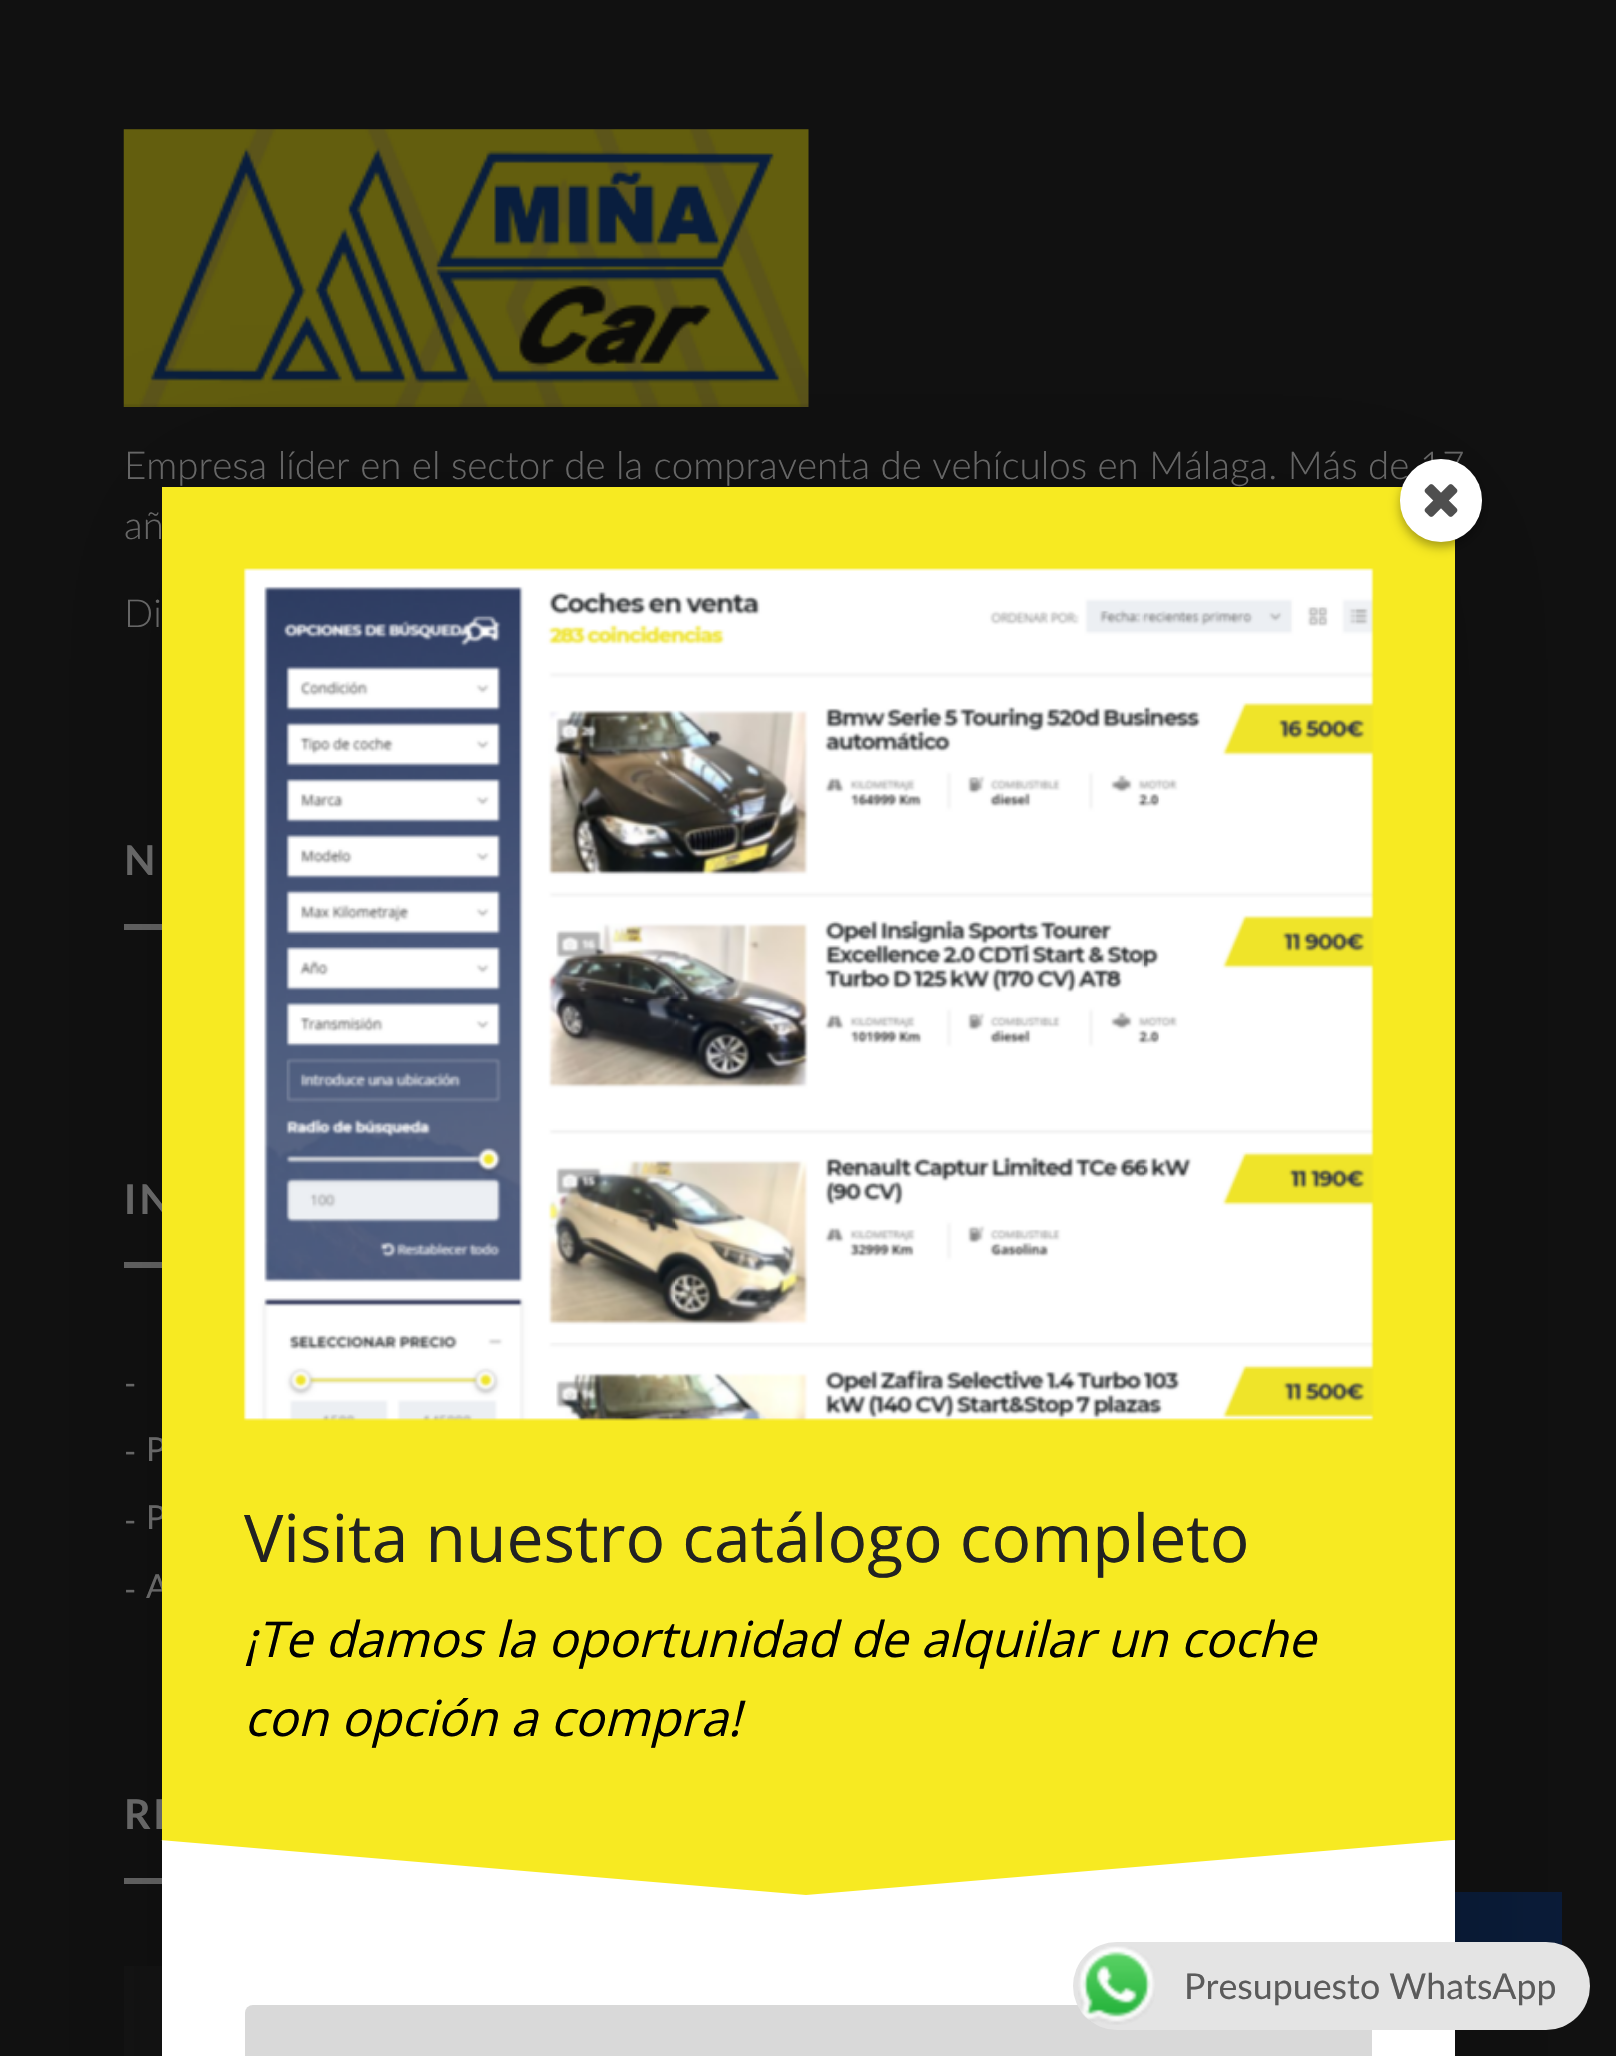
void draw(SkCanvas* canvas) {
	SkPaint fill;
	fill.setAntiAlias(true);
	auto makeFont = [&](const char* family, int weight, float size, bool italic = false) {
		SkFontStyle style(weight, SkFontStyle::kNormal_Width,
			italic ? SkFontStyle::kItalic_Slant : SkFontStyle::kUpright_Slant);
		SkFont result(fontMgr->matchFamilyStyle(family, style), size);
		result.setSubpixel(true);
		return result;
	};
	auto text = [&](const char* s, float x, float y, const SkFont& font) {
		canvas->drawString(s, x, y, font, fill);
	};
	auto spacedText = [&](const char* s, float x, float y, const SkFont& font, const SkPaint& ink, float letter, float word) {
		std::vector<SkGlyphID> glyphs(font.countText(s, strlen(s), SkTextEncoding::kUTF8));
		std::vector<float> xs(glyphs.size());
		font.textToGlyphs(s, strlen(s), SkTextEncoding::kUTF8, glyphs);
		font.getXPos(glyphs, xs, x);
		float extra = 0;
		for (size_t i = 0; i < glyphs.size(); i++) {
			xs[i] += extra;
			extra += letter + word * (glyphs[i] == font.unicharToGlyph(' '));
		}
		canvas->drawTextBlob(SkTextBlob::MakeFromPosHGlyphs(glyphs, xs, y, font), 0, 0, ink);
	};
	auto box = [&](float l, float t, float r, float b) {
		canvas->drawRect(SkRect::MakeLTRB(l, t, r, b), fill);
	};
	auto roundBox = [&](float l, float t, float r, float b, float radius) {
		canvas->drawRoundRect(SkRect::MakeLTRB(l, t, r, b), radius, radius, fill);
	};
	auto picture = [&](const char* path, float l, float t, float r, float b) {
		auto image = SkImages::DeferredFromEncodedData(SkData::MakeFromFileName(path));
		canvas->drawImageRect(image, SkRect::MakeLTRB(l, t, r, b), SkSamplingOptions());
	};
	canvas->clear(0xFF111111);
	picture("image0.png", 123, 129, 809, 407);
	fill.setColor(0xFF666666);
	box(124, 924, 162, 930);
	box(124, 1262, 162, 1268);
	box(124, 1878, 162, 1884);
	fill.setColor(0xFF141414);
	box(124, 1966, 162, 2056);
	fill.setColor(0xFF0A1C39);
	box(1455, 1892, 1562, 1945);
	fill.setColor(0x33000000);
	fill.setMaskFilter(SkMaskFilter::MakeBlur(kNormal_SkBlurStyle, 82.5f));
	canvas->drawRect(SkRect::MakeLTRB(162, 487, 1455, 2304), fill);
	fill.setMaskFilter(nullptr);
	fill.setColor(0xFFFFFFFF);
	box(162, 1840, 1455, 2056);
	fill.setColor(0xFFF7EA22);
	canvas->drawPath(SkPathBuilder().moveTo(160, 1840).lineTo(806, 1895).lineTo(1453, 1840).close().detach(), fill);
	fill.setColor(0xFFD9D9D9);
	roundBox(245, 2005, 1372, 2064, 8);
	fill.setColor(0xFFE4E4E4);
	roundBox(1073, 1942, 1590, 2030, 44);
	picture("image3.png", 1078, 1946, 1155, 2025);
	auto font1 = makeFont("Lato", 300, 38.5f);
	fill.setColor(0xFF666666);
	text("Empresa líder en el sector de la compraventa de vehículos en Málaga. Más de 17", 124, 479, font1);
	text("añ", 124, 539, font1);
	text("Di", 124, 627, font1);
	auto font2 = makeFont("Lato", 700, 41);
	spacedText("N", 124, 875, font2, fill, 3, 0);
	spacedText("IN", 124, 1214, font2, fill, 3, 0);
	auto font3 = makeFont("Lato", 400, 33);
	text("-", 124, 1395, font3);
	text("-", 124, 1463, font3);
	text("P", 146, 1461, font3);
	text("-", 124, 1532, font3);
	text("P", 146, 1529, font3);
	text("-", 124, 1601, font3);
	text("A", 146, 1598, font3);
	spacedText("RE", 124, 1829, font2, fill, 3, 0);
	fill.setColor(0xFFF7EA22);
	box(162, 487, 1455, 1840);
	fill.setColor(0x57000000);
	fill.setMaskFilter(SkMaskFilter::MakeBlur(kNormal_SkBlurStyle, 5.5f));
	canvas->drawRoundRect(SkRect::MakeLTRB(1400, 465, 1482, 547), 41, 41, fill);
	fill.setMaskFilter(nullptr);
	fill.setColor(0xFFFFFFFF);
	roundBox(1400, 459, 1482, 542, 41);
	picture("image1.png", 1424, 484, 1458, 517);
	picture("image2.png", 243, 568, 1374, 1421);
	auto font4 = makeFont("Open Sans", 400, 66);
	fill.setColor(0xFF222222);
	text("Visita nuestro catálogo completo", 244, 1562, font4);
	auto font5 = makeFont("Open Sans", 400, 49.5f, true);
	fill.setColor(0xFF000000);
	text("¡Te damos la oportunidad de alquilar un coche", 244, 1657, font5);
	text("con opción a compra!", 244, 1736, font5);
	auto font6 = makeFont("Lato", 400, 35.75f);
	fill.setColor(0xFF5B5B5B);
	text("Presupuesto WhatsApp", 1184, 1999, font6);
}
